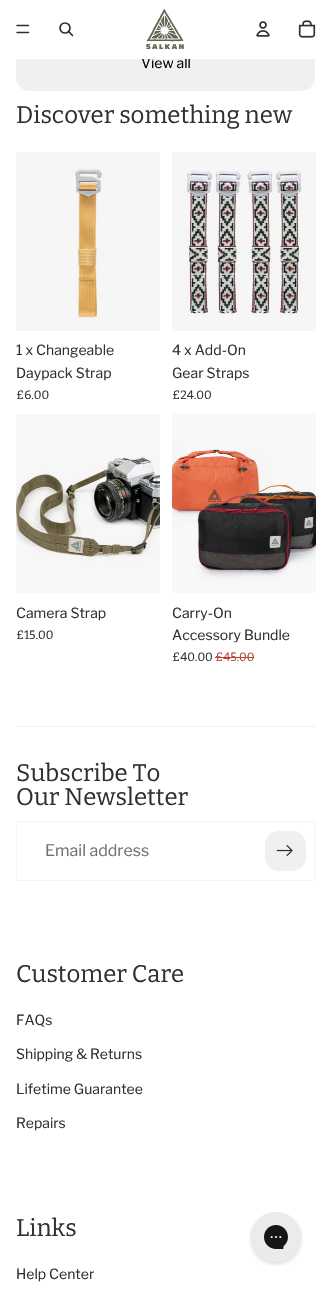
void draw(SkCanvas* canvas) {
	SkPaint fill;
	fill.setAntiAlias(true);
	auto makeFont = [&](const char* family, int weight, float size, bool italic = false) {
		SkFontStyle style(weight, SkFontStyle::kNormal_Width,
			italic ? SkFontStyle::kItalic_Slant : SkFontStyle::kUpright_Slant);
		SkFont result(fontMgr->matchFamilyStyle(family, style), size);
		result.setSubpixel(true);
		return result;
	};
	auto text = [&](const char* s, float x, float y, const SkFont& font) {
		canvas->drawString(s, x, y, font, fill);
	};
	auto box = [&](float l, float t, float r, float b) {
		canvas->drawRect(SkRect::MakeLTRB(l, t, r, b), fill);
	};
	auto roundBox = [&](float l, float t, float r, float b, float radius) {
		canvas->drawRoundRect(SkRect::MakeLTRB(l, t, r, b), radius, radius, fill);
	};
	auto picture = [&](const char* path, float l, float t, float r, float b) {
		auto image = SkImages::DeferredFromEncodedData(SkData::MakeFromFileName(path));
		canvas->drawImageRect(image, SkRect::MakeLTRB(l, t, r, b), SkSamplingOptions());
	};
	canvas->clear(0xFFFFFFFF);
	fill.setStyle(SkPaint::kStroke_Style);
	fill.setStrokeWidth(1.5f);
	fill.setStrokeCap(SkPaint::kRound_Cap);
	fill.setColor(0xFF303030);
	canvas->drawPath(SkPathBuilder().moveTo(17, 25.5f).lineTo(28.5f, 25.5f).moveTo(17, 32.5f).lineTo(28.5f, 32.5f).detach(), fill);
	fill.setStrokeWidth(1.7f);
	fill.setStrokeCap(SkPaint::kButt_Cap);
	canvas->drawCircle(65, 28, 5, fill);
	fill.setStyle(SkPaint::kFill_Style);
	fill.setColor(0xFFF0F0F0);
	roundBox(16, 36, 315, 91, 14);
	picture("image3.png", 16, 152, 160, 331);
	picture("image4.png", 172, 152, 316, 331);
	picture("image5.png", 16, 414, 160, 593);
	picture("image6.png", 172, 414, 316, 593);
	fill.setColor(0xFFB34536);
	box(215, 657, 254, 658);
	fill.setColor(0xFFF0F0F0);
	canvas->drawPath(SkPathBuilder().moveTo(315, 726).lineTo(315, 727).lineTo(314, 726).close().detach(), fill);
	fill.setColor(0x0F000000);
	canvas->drawPath(SkPathBuilder().moveTo(315, 727).lineTo(16, 727).lineTo(16, 726).lineTo(314, 726).close().detach(), fill);
	fill.setStyle(SkPaint::kStroke_Style);
	fill.setStrokeWidth(1);
	fill.setColor(0xFFF5F5F5);
	canvas->drawRect(SkRect::MakeLTRB(16.5f, 821.5f, 314.5f, 880.5f), fill);
	fill.setStyle(SkPaint::kFill_Style);
	fill.setColor(0xFFF0F0F0);
	roundBox(265, 831, 306, 871, 14);
	picture("image7.png", 276, 845, 293, 856);
	picture("image8.png", 249, 1212, 303, 1266);
	auto font1 = makeFont("Libre Franklin", 400, 14);
	fill.setColor(0xFF000000);
	text("View all", 141, 68, font1);
	fill.setColor(0xFFFFFFFF);
	box(16, 36, 315, 59);
	picture("image2.png", 298, 20, 316, 38);
	picture("image1.png", 256, 21, 270, 37);
	fill.setStyle(SkPaint::kStroke_Style);
	fill.setStrokeWidth(1.7f);
	fill.setStrokeCap(SkPaint::kRound_Cap);
	fill.setStrokeJoin(SkPaint::kRound_Join);
	fill.setColor(0xCF000000);
	canvas->drawPath(SkPathBuilder().moveTo(69, 32).lineTo(72.5f, 35.5f).detach(), fill);
	picture("image0.png", 146, 9, 184, 49);
	auto font2 = makeFont("Bitter", 400, 24);
	fill.setStyle(SkPaint::kFill_Style);
	fill.setColor(0xFF303030);
	text("Discover something new", 16, 123, font2);
	text("1 x Changeable", 16, 355, font1);
	text("Daypack Strap", 16, 378, font1);
	auto font3 = makeFont("Bitter", 400, 12);
	text("£6.00", 16, 399, font3);
	text("4 x Add-On", 172, 355, font1);
	text("Gear Straps", 172, 378, font1);
	text("£24.00", 172, 399, font3);
	text("Camera Strap", 16, 618, font1);
	text("£15.00", 16, 639, font3);
	text("Carry-On", 172, 618, font1);
	text("Accessory Bundle", 172, 640, font1);
	text("£40.00", 172, 661, font3);
	fill.setColor(0xFFB34536);
	text("£45.00", 215, 661, font3);
	fill.setColor(0xFF303030);
	text("Subscribe To", 16, 781, font2);
	text("Our Newsletter", 16, 805, font2);
	auto font4 = makeFont("Libre Franklin", 400, 16);
	fill.setColor(0xFF707070);
	text("Email address", 45, 856, font4);
	fill.setColor(0xFF303030);
	text("Customer Care", 16, 982, font2);
	text("FAQs", 16, 1025, font1);
	text("Shipping & Returns", 16, 1059, font1);
	text("Lifetime Guarantee", 16, 1094, font1);
	text("Repairs", 16, 1128, font1);
	text("Links", 16, 1236, font2);
	text("Help Center", 16, 1279, font1);
}
